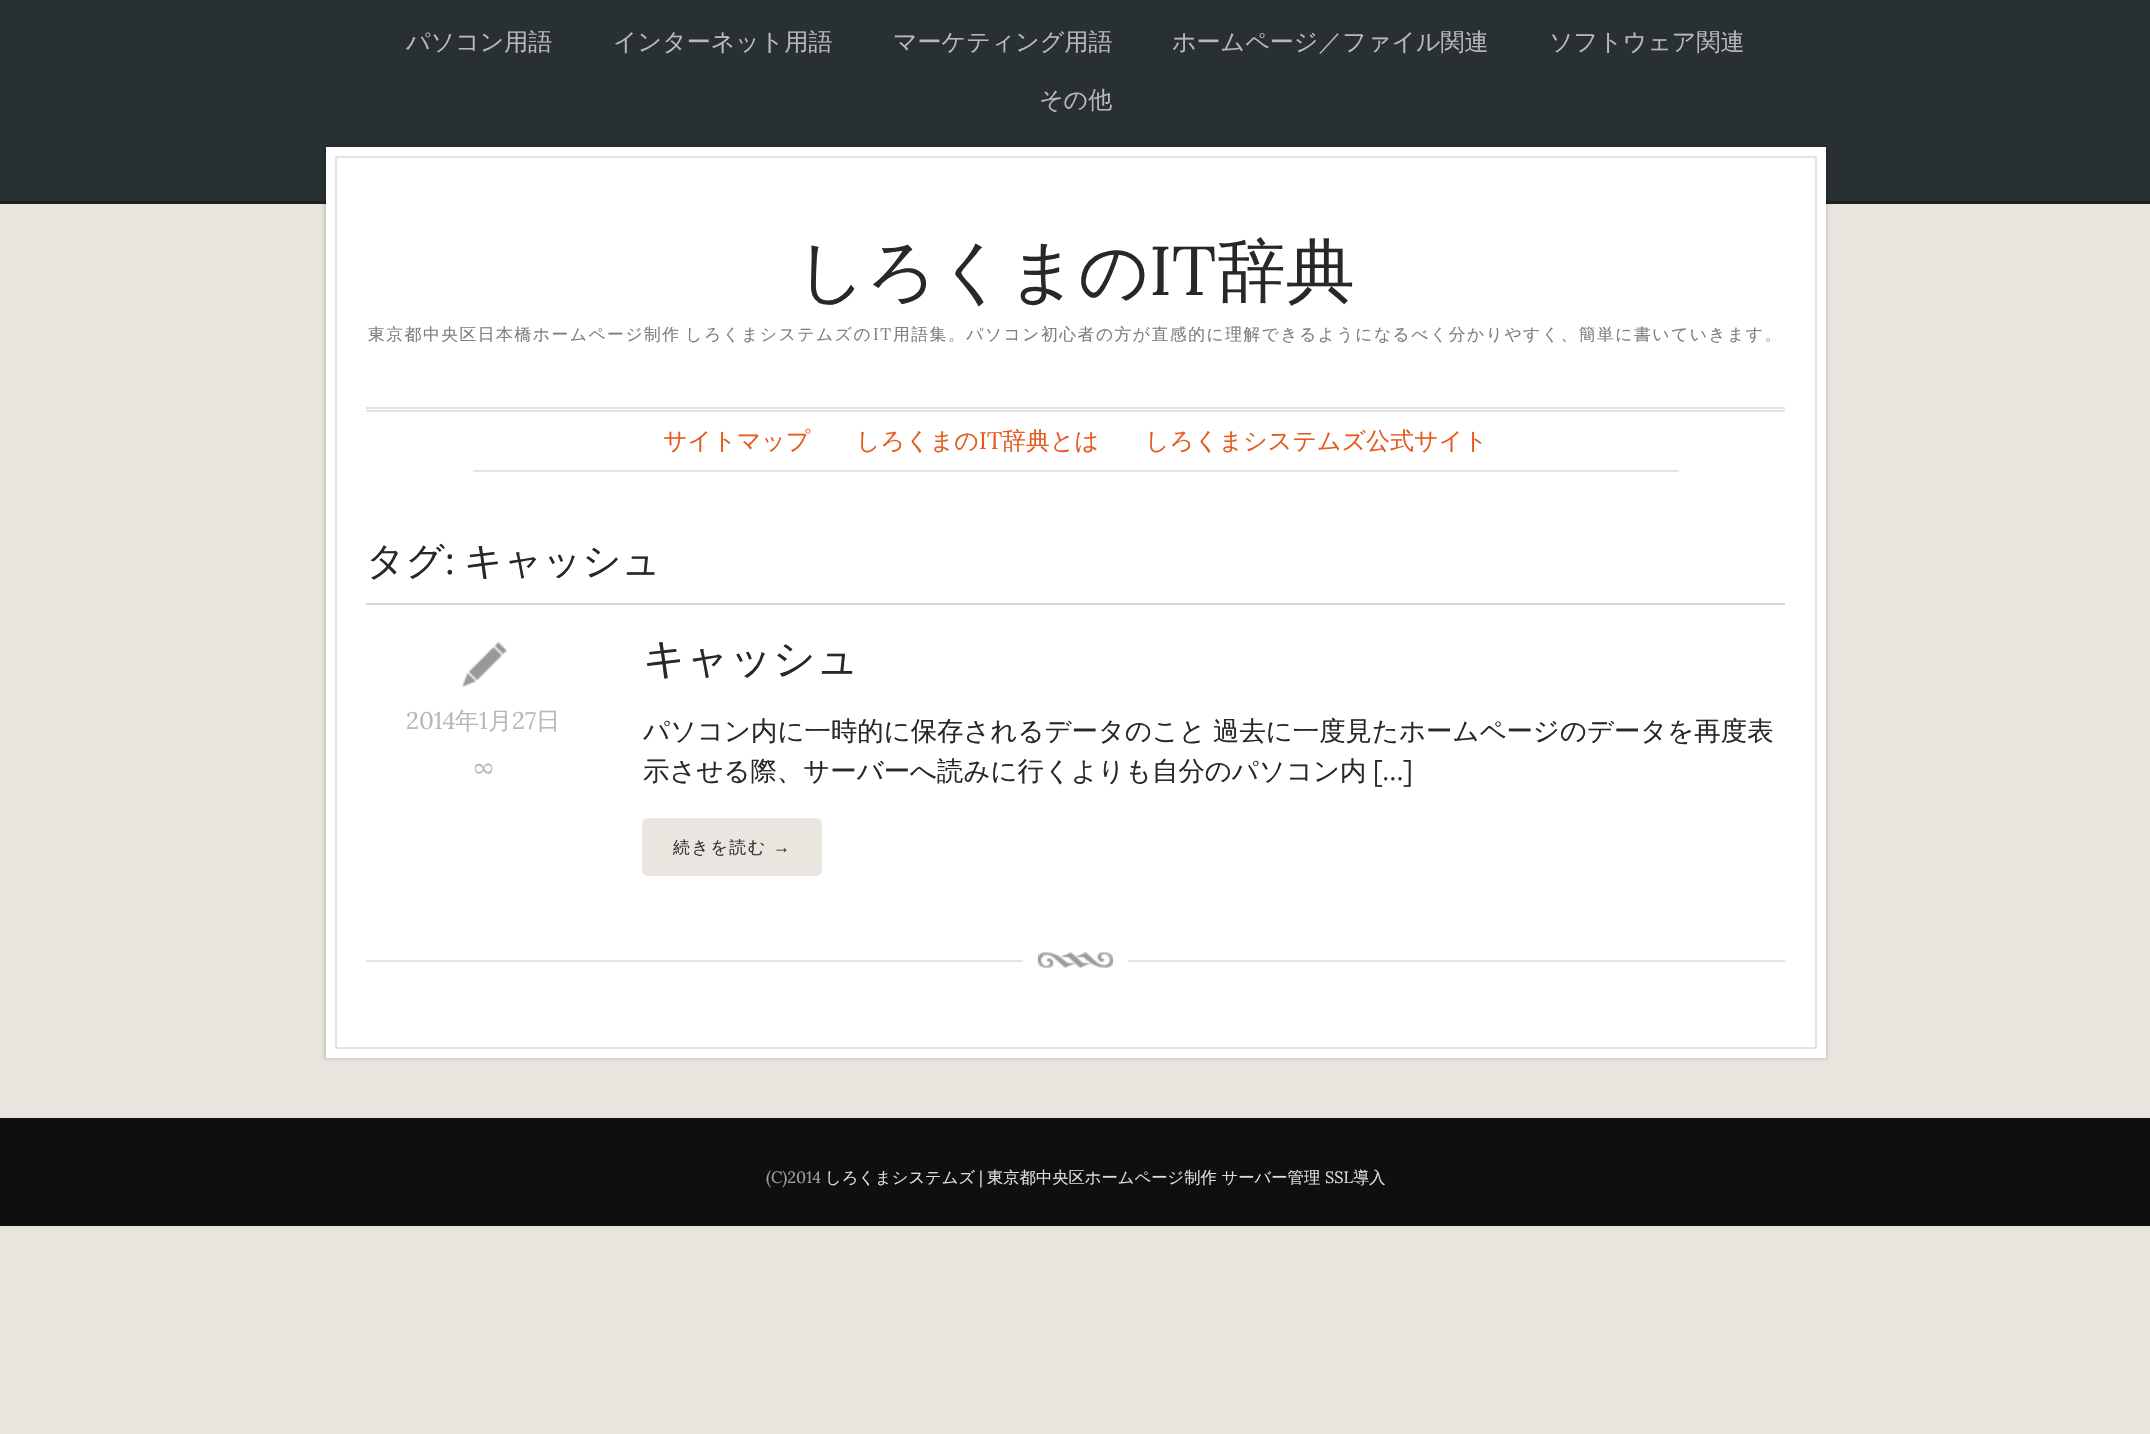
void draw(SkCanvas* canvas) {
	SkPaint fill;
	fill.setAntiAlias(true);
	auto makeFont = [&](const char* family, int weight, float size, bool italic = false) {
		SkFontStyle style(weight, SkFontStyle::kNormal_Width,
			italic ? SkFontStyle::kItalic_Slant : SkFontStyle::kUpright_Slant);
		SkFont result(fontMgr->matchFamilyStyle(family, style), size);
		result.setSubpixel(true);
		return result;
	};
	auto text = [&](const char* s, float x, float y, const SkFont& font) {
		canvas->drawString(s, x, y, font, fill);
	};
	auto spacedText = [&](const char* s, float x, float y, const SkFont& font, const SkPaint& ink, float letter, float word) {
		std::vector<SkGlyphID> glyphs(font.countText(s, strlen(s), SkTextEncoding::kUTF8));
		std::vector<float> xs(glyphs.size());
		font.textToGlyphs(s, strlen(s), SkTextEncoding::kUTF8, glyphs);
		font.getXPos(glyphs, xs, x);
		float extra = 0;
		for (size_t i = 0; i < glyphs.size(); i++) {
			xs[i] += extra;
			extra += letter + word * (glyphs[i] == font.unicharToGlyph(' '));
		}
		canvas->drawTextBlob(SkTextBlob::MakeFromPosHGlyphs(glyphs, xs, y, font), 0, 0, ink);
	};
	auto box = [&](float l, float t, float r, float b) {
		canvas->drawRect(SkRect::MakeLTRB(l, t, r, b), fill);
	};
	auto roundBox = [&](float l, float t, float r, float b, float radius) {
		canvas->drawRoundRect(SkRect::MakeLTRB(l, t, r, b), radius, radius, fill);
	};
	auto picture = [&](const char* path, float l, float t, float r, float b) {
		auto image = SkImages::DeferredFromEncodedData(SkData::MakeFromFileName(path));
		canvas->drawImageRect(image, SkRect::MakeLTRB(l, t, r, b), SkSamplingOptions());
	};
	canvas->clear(0xFFE9E6E0);
	fill.setColor(0xFF293033);
	box(0, 0, 2150, 201);
	fill.setColor(0xFF1D2224);
	box(0, 201, 2150, 204);
	fill.setColor(0x26000000);
	fill.setMaskFilter(SkMaskFilter::MakeBlur(kNormal_SkBlurStyle, 2));
	canvas->drawRect(SkRect::MakeLTRB(324, 146, 1827, 1059), fill);
	fill.setMaskFilter(nullptr);
	fill.setColor(0xFFFFFFFF);
	box(326, 147, 1826, 1058);
	fill.setStyle(SkPaint::kStroke_Style);
	fill.setStrokeWidth(2);
	fill.setColor(0xFFE5E3E1);
	canvas->drawRect(SkRect::MakeLTRB(336, 157, 1816, 1048), fill);
	fill.setStyle(SkPaint::kFill_Style);
	box(366, 407, 1785, 409);
	box(366, 410, 1785, 412);
	box(473, 470, 1679, 472);
	fill.setColor(0xFFD7D7D7);
	box(366, 603, 1785, 605);
	fill.setColor(0xFFE5E3E1);
	box(366, 960, 1785, 962);
	picture("image0.png", 462, 642, 507, 688);
	fill.setColor(0xFFE9E6E0);
	roundBox(642, 818, 822, 876, 6);
	fill.setColor(0xFFFFFFFF);
	roundBox(1023, 941, 1128, 980, 15);
	picture("image1.png", 1038, 952, 1113, 968);
	fill.setColor(0xFF0F0F0F);
	box(0, 1118, 2150, 1226);
	auto font1 = makeFont("WenQuanYi Zen Hei", 500, 24);
	fill.setColor(0xFFB8B8B8);
	text("パソコン用語", 406, 50, font1);
	text("インターネット用語", 613, 50, font1);
	text("マーケティング用語", 893, 50, font1);
	text("ホームページ／ファイル関連", 1172, 50, font1);
	text("ソフトウェア関連", 1549, 50, font1);
	text("その他", 1039, 108, font1);
	auto font2 = makeFont("WenQuanYi Zen Hei", 500, 69);
	fill.setColor(0xFF282828);
	text("しろくまの", 796, 295, font2);
	auto font3 = makeFont("Lora", 400, 69);
	text("IT", 1149, 295, font3);
	text("辞典", 1217, 295, font2);
	auto font4 = makeFont("WenQuanYi Zen Hei", 500, 16.8f);
	fill.setColor(0xFF7E7E7E);
	spacedText("東京都中央区日本橋ホームページ制作 しろくまシステムズの", 368, 340, font4, fill, 1.5f, -2);
	auto font5 = makeFont("Lora", 400, 16.8f);
	spacedText("IT", 873, 340, font5, fill, 1.5f, 0);
	spacedText("用語集。パソコン初心者の方が直感的に理解できるようになるべく分かりやすく、簡単に書いていきます。", 893, 340, font4, fill, 1.5f, 0);
	fill.setColor(0xFFE65A1E);
	text("サイトマップ", 663, 449, font1);
	text("しろくまの", 856, 449, font1);
	auto font6 = makeFont("Lora", 400, 24);
	text("IT", 979, 449, font6);
	text("辞典とは", 1002, 449, font1);
	text("しろくまシステムズ公式サイト", 1145, 449, font1);
	auto font7 = makeFont("WenQuanYi Zen Hei", 500, 38.5f);
	fill.setColor(0xFF282828);
	text("タグ", 366, 574, font7);
	auto font8 = makeFont("Lora", 400, 38.5f);
	text(":", 445, 574, font8);
	text("キャッシュ", 464, 574, font7);
	fill.setColor(0xFFB8B8B8);
	text("2014", 406, 729, font6);
	text("年", 455, 729, font1);
	text("1", 479, 729, font6);
	text("月", 488, 729, font1);
	text("27", 512, 729, font6);
	text("日", 536, 729, font1);
	text("∞", 473, 777, font6);
	auto font9 = makeFont("WenQuanYi Zen Hei", 500, 42.25f);
	fill.setColor(0xFF282828);
	text("キャッシュ", 643, 673, font9);
	auto font10 = makeFont("WenQuanYi Zen Hei", 500, 26.4f);
	spacedText("パソコン内に一時的に保存されるデータのこと 過去に一度見たホームページのデータを再度表", 643, 740, font10, fill, 0, -1);
	text("示させる際、サーバーへ読みに行くよりも自分のパソコン内", 643, 780, font10);
	auto font11 = makeFont("Lora", 400, 26.4f);
	text("[…]", 1373, 780, font11);
	auto font12 = makeFont("WenQuanYi Zen Hei", 500, 17);
	fill.setColor(0xFF333231);
	spacedText("続きを読む", 673, 853, font12, fill, 1.5f, 0);
	auto font13 = makeFont("Liberation Serif", 400, 17);
	spacedText("→", 773, 853, font13, fill, 1.5f, 0);
	auto font14 = makeFont("Lora", 400, 16.3f);
	fill.setColor(0xFFA0A0A0);
	text("(C)2014", 766, 1183, font14);
	auto font15 = makeFont("WenQuanYi Zen Hei", 500, 16.3f);
	fill.setColor(0xFFDDDDDD);
	text("しろくまシステムズ", 825, 1183, font15);
	text("|", 979, 1183, font14);
	text("東京都中央区ホームページ制作 サーバー管理", 987, 1183, font15);
	text("SSL", 1325, 1183, font14);
	text("導入", 1353, 1183, font15);
}
